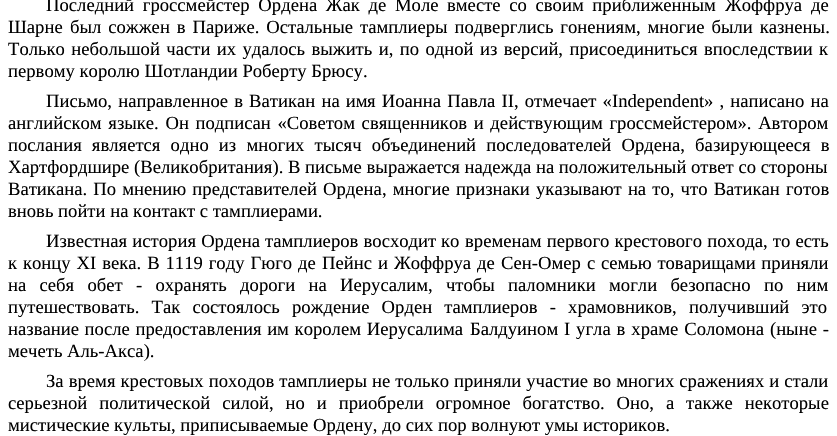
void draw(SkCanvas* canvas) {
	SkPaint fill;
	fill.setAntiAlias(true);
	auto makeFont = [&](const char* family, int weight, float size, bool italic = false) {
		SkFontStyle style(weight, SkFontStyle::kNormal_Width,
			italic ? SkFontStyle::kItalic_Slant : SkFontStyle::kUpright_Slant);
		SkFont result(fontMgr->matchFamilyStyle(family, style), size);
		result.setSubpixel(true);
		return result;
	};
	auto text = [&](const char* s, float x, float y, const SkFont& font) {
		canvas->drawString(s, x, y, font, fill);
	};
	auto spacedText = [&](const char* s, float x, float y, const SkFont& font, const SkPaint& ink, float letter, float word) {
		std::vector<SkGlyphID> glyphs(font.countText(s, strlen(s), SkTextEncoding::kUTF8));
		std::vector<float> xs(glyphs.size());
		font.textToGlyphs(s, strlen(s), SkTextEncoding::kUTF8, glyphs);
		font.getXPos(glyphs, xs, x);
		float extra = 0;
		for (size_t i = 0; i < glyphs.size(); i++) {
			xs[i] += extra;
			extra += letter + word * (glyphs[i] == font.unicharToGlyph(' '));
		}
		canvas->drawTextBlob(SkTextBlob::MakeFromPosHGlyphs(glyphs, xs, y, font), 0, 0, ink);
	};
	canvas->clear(0xFFFFFFFF);
	auto font1 = makeFont("Liberation Serif", 400, 18.65f);
	fill.setColor(0xFF000000);
	spacedText("Последний гроссмейстер Ордена Жак де", 46, 11, font1, fill, 0, 4);
	text("Моле", 395, 11, font1);
	spacedText("вместе со своим приближенным", 447, 11, font1, fill, 0, 4);
	text("Жоффруа", 725, 11, font1);
	text("де", 811, 11, font1);
	text("Шарне", 8, 33, font1);
	spacedText("был сожжен в Париже. Остальные тамплиеры подверглись гонениям, многие были казнены.", 70, 33, font1, fill, 0, 2.25f);
	spacedText("Только небольшой части их удалось выжить и, по одной из версий, присоединиться впоследствии к", 8, 55, font1, fill, 0, 1.75f);
	text("первому королю Шотландии Роберту Брюсу.", 8, 77, font1);
	spacedText("Письмо, направленное в Ватикан на им", 46, 107, font1, fill, 0, 1.5f);
	spacedText("я Иоанна Павла II, отмечает «", 367, 107, font1, fill, 0, 1.5f);
	text("Independent", 612, 107, font1);
	spacedText("» , написано на", 704, 107, font1, fill, 0, 1.5f);
	spacedText("английском языке. Он подписан «Советом священников и действующим гроссмейстером». Автором", 8, 129, font1, fill, 0, 2);
	spacedText("послания является одно из многих тысяч объединений последователей Ордена, базирующееся в", 8, 151, font1, fill, 0, 5.5f);
	text("Хартфордшире (Великобритания). В письме выражается надежда на положительный ответ со стороны", 8, 173, font1);
	spacedText("Ватикана. По мнению представителей Ордена, многие признаки указывают на то, что Ватикан готов", 8, 195, font1, fill, 0, 1.5f);
	text("вновь пойти на контакт с тамплиерами.", 8, 217, font1);
	spacedText("Известная история Ордена тамплиеров восходит", 46, 247, font1, fill, 0, 0.5f);
	text("ко", 441, 247, font1);
	spacedText("временам первого крестового похода, то есть", 465, 247, font1, fill, 0, 0.5f);
	spacedText("к концу XI века. В 1119 году Гюго де", 8, 269, font1, fill, 0, 1.25f);
	text("Пейнс", 322, 269, font1);
	text("и", 378, 269, font1);
	text("Жоффруа", 394, 269, font1);
	text("де", 477, 269, font1);
	text("Сен-Омер", 501, 269, font1);
	spacedText("с семью товарищами приняли", 587, 269, font1, fill, 0, 1);
	spacedText("на себя обет - охранять дороги на Иерусалим, чтобы паломники могли безопасно по ним", 8, 291, font1, fill, 0, 8.6f);
	spacedText("путешествовать. Так состоялось рождение Орден тамплиеров - храмовников, получивший это", 8, 313, font1, fill, 0, 7.5f);
	spacedText("название после предоставления им королем Иерусалима", 8, 335, font1, fill, 0, 1);
	text("Балдуином", 470, 335, font1);
	spacedText("I угла в храме Соломона (ныне -", 564, 335, font1, fill, 0, 1.25f);
	text("мечеть Аль-Акса).", 8, 357, font1);
	spacedText("За время крестовых походов тамплиеры не только приняли участие во многих сражениях и стали", 46, 387, font1, fill, 0, 0.4f);
	spacedText("серьезной политической силой, но и приобрели огромное богатство. Оно, а также некоторые", 8, 409, font1, fill, 0, 7.25f);
	text("мистические культы, приписываемые Ордену, до сих пор волнуют умы историков.", 8, 431, font1);
}
